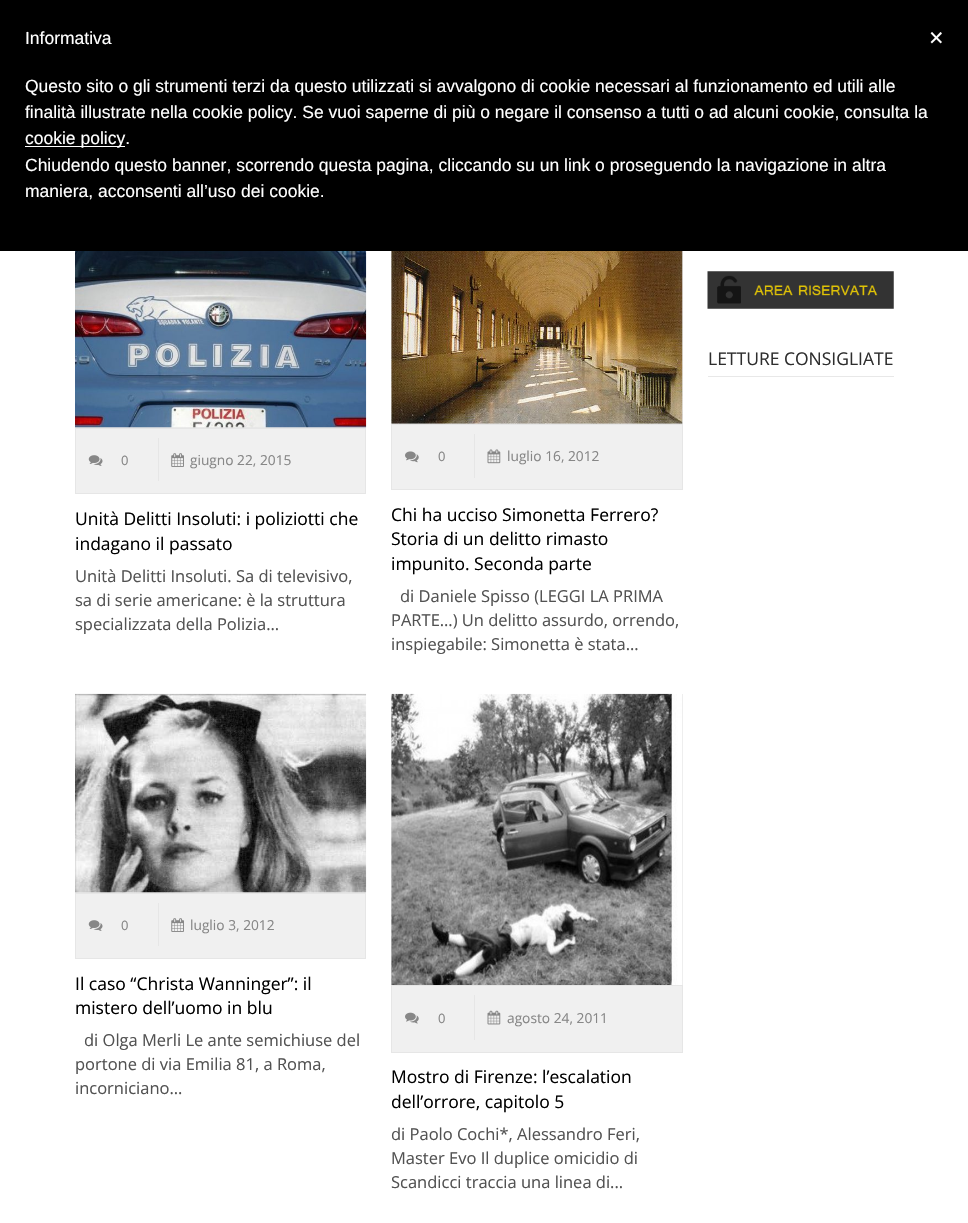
void draw(SkCanvas* canvas) {
	SkPaint fill;
	fill.setAntiAlias(true);
	auto makeFont = [&](const char* family, int weight, float size, bool italic = false) {
		SkFontStyle style(weight, SkFontStyle::kNormal_Width,
			italic ? SkFontStyle::kItalic_Slant : SkFontStyle::kUpright_Slant);
		SkFont result(fontMgr->matchFamilyStyle(family, style), size);
		result.setSubpixel(true);
		return result;
	};
	auto text = [&](const char* s, float x, float y, const SkFont& font) {
		canvas->drawString(s, x, y, font, fill);
	};
	auto box = [&](float l, float t, float r, float b) {
		canvas->drawRect(SkRect::MakeLTRB(l, t, r, b), fill);
	};
	auto picture = [&](const char* path, float l, float t, float r, float b) {
		auto image = SkImages::DeferredFromEncodedData(SkData::MakeFromFileName(path));
		canvas->drawImageRect(image, SkRect::MakeLTRB(l, t, r, b), SkSamplingOptions());
	};
	canvas->clear(0xFFFFFFFF);
	fill.setColor(0xFF000000);
	box(0, 0, 968, 251);
	fill.setColor(0xFFFFFFFF);
	box(25, 146, 125, 147);
	picture("image0.png", 707, 271, 894, 309);
	fill.setColor(0xFFE8E8E8);
	box(708, 376, 894, 377);
	box(75, 427, 366, 428);
	picture("image1.png", 75, 251, 367, 428);
	fill.setColor(0xFFF0F0F0);
	canvas->drawRect(SkRect::MakeLTRB(75.5f, 428.5f, 365.5f, 493.5f), fill);
	fill.setStyle(SkPaint::kStroke_Style);
	fill.setStrokeWidth(1);
	fill.setColor(0xFFE6E6E6);
	canvas->drawRect(SkRect::MakeLTRB(75.5f, 428.5f, 365.5f, 493.5f), fill);
	picture("image2.png", 88, 455, 103, 466);
	fill.setStyle(SkPaint::kFill_Style);
	box(158, 438, 159, 481);
	picture("image3.png", 171, 453, 184, 467);
	fill.setColor(0xFFE8E8E8);
	box(391, 251, 683, 424);
	picture("image4.png", 391, 251, 683, 424);
	fill.setColor(0xFFF0F0F0);
	canvas->drawRect(SkRect::MakeLTRB(391.5f, 424.5f, 682.5f, 489.5f), fill);
	fill.setStyle(SkPaint::kStroke_Style);
	fill.setColor(0xFFE6E6E6);
	canvas->drawRect(SkRect::MakeLTRB(391.5f, 424.5f, 682.5f, 489.5f), fill);
	picture("image5.png", 405, 451, 419, 463);
	fill.setStyle(SkPaint::kFill_Style);
	box(474, 434, 475, 478);
	picture("image6.png", 487, 449, 501, 464);
	fill.setColor(0xFFE8E8E8);
	box(75, 892, 366, 893);
	picture("image7.png", 75, 693, 367, 893);
	fill.setColor(0xFFF0F0F0);
	canvas->drawRect(SkRect::MakeLTRB(75.5f, 893.5f, 365.5f, 958.5f), fill);
	fill.setStyle(SkPaint::kStroke_Style);
	fill.setColor(0xFFE6E6E6);
	canvas->drawRect(SkRect::MakeLTRB(75.5f, 893.5f, 365.5f, 958.5f), fill);
	picture("image2.png", 88, 920, 103, 931);
	fill.setStyle(SkPaint::kFill_Style);
	box(158, 903, 159, 946);
	picture("image3.png", 171, 918, 184, 932);
	fill.setColor(0xFFE8E8E8);
	box(391, 694, 683, 985);
	picture("image8.png", 391, 693, 683, 985);
	fill.setColor(0xFFF0F0F0);
	canvas->drawRect(SkRect::MakeLTRB(391.5f, 985.5f, 682.5f, 1052.5f), fill);
	fill.setStyle(SkPaint::kStroke_Style);
	fill.setColor(0xFFE6E6E6);
	canvas->drawRect(SkRect::MakeLTRB(391.5f, 985.5f, 682.5f, 1052.5f), fill);
	picture("image9.png", 405, 1012, 419, 1024);
	fill.setStyle(SkPaint::kFill_Style);
	box(474, 995, 475, 1040);
	picture("image10.png", 487, 1010, 501, 1025);
	auto font1 = makeFont("Liberation Sans", 400, 17.5f);
	fill.setColor(0xFFFFFFFF);
	text("Informativa", 25, 44, font1);
	text("Questo sito o gli strumenti terzi da questo utilizzati si avvalgono di cookie necessari al funzionamento ed utili alle", 25, 92, font1);
	text("finalità illustrate nella cookie policy. Se vuoi saperne di più o negare il consenso a tutti o ad alcuni cookie, consulta la", 25, 118, font1);
	text("cookie policy.", 25, 144, font1);
	text("Chiudendo questo banner, scorrendo questa pagina, cliccando su un link o proseguendo la navigazione in altra", 25, 171, font1);
	text("maniera, acconsenti all’uso dei cookie.", 25, 197, font1);
	auto font2 = makeFont("Liberation Sans", 400, 25);
	text("×", 929, 46, font2);
	auto font3 = makeFont("Open Sans", 400, 17.5f);
	fill.setColor(0xFF2E2E2E);
	text("LETTURE CONSIGLIATE", 708, 365, font3);
	auto font4 = makeFont("Open Sans", 400, 13);
	fill.setColor(0xFF878787);
	text("0", 121, 465, font4);
	auto font5 = makeFont("Open Sans", 400, 13.75f);
	text("giugno 22, 2015", 190, 465, font5);
	fill.setColor(0xFF000000);
	text("Unità Delitti Insoluti: i poliziotti che", 75, 525, font3);
	text("indagano il passato", 75, 550, font3);
	auto font6 = makeFont("Open Sans", 400, 16.5f);
	fill.setColor(0xFF525252);
	text("Unità Delitti Insoluti. Sa di televisivo,", 75, 582, font6);
	text("sa di serie americane: è la struttura", 75, 606, font6);
	text("specializzata della Polizia...", 75, 630, font6);
	fill.setColor(0xFF878787);
	text("0", 438, 461, font4);
	text("luglio 16, 2012", 507, 461, font5);
	fill.setColor(0xFF000000);
	text("Chi ha ucciso Simonetta Ferrero?", 391, 521, font3);
	text("Storia di un delitto rimasto", 391, 545, font3);
	text("impunito. Seconda parte", 391, 570, font3);
	fill.setColor(0xFF525252);
	text("di Daniele Spisso (LEGGI LA PRIMA", 400, 602, font6);
	text("PARTE…) Un delitto assurdo, orrendo,", 391, 626, font6);
	text("inspiegabile: Simonetta è stata...", 391, 650, font6);
	fill.setColor(0xFF878787);
	text("0", 121, 930, font4);
	text("luglio 3, 2012", 190, 930, font5);
	fill.setColor(0xFF000000);
	text("Il caso “Christa Wanninger”: il", 75, 990, font3);
	text("mistero dell’uomo in blu", 75, 1014, font3);
	fill.setColor(0xFF525252);
	text("di Olga Merli Le ante semichiuse del", 84, 1046, font6);
	text("portone di via Emilia 81, a Roma,", 75, 1070, font6);
	text("incorniciano...", 75, 1094, font6);
	fill.setColor(0xFF878787);
	text("0", 438, 1023, font4);
	text("agosto 24, 2011", 507, 1023, font5);
	fill.setColor(0xFF000000);
	text("Mostro di Firenze: l’escalation", 391, 1083, font3);
	text("dell’orrore, capitolo 5", 391, 1108, font3);
	fill.setColor(0xFF525252);
	text("di Paolo Cochi*, Alessandro Feri,", 391, 1140, font6);
	text("Master Evo Il duplice omicidio di", 391, 1164, font6);
	text("Scandicci traccia una linea di...", 391, 1188, font6);
}
